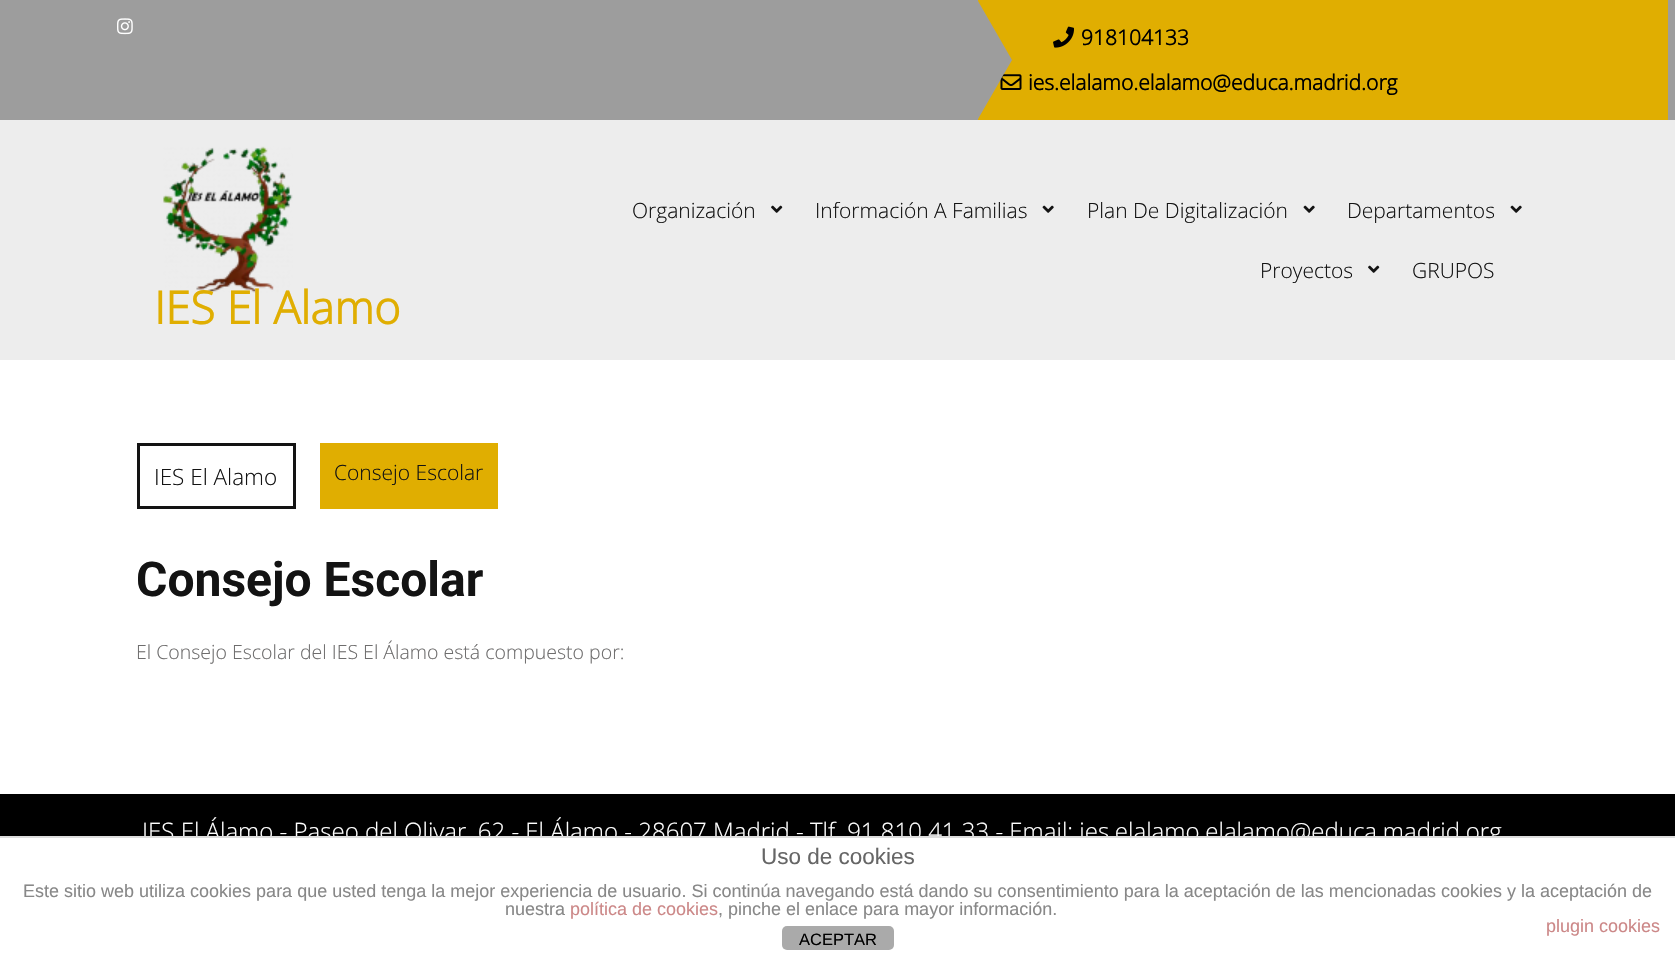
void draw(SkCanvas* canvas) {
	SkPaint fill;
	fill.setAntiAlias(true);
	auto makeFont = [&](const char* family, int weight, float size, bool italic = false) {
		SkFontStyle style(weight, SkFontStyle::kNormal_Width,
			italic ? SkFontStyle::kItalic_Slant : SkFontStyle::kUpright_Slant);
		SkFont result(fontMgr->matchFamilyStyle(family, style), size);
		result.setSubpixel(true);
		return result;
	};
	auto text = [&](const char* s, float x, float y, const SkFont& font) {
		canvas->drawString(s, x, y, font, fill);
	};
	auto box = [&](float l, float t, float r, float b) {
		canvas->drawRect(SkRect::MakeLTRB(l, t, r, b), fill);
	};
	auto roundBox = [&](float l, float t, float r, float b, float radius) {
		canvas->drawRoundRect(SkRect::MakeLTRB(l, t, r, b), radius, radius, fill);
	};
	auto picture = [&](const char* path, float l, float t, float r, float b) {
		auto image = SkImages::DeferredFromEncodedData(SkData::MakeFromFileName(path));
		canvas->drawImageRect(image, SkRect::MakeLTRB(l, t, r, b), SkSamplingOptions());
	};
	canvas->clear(0xFFFFFFFF);
	fill.setColor(0xFF9D9D9D);
	box(0, 0, 1675, 120);
	picture("image0.png", 117, 18, 133, 35);
	fill.setColor(0xFFE0AE01);
	canvas->drawPath(SkPathBuilder().moveTo(978, 0).lineTo(978, 1).lineTo(1012, 60).lineTo(978, 119).lineTo(978, 120).lineTo(1668, 120).lineTo(1668, 0).close().detach(), fill);
	picture("image1.png", 1053, 26, 1074, 48);
	picture("image2.png", 1000, 74, 1022, 90);
	fill.setColor(0xFFEDEDED);
	box(0, 120, 1675, 360);
	picture("image3.png", 771, 205, 783, 213);
	picture("image4.png", 1042, 205, 1054, 213);
	picture("image4.png", 1303, 205, 1315, 213);
	picture("image4.png", 1510, 205, 1522, 213);
	picture("image3.png", 1368, 265, 1380, 273);
	picture("image5.png", 163, 146, 293, 293);
	fill.setStyle(SkPaint::kStroke_Style);
	fill.setStrokeWidth(3);
	fill.setColor(0xFF131313);
	canvas->drawRect(SkRect::MakeLTRB(138.5f, 444.5f, 294.5f, 507.5f), fill);
	fill.setStyle(SkPaint::kFill_Style);
	fill.setColor(0xFFE0AE01);
	box(320, 443, 498, 509);
	fill.setColor(0xFF000000);
	box(0, 794, 1675, 836);
	fill.setColor(0xFFAAAAAA);
	roundBox(782, 926, 894, 950, 5);
	auto font1 = makeFont("Open Sans", 700, 21);
	fill.setColor(0xFF000000);
	text("918104133", 1081, 45, font1);
	text("ies.elalamo.elalamo@educa.madrid.org", 1028, 90, font1);
	auto font2 = makeFont("Open Sans", 300, 21);
	fill.setColor(0xFF131313);
	text("Organización", 632, 218, font2);
	text("Información A Familias", 815, 218, font2);
	text("Plan De Digitalización", 1087, 218, font2);
	text("Departamentos", 1347, 218, font2);
	text("Proyectos", 1260, 278, font2);
	text("GRUPOS", 1412, 278, font2);
	auto font3 = makeFont("Open Sans", 700, 45);
	fill.setColor(0xFFE0AE01);
	text("IES El Alamo", 154, 324, font3);
	auto font4 = makeFont("Open Sans", 300, 22.5f);
	fill.setColor(0xFF131313);
	text("IES El Alamo", 154, 485, font4);
	text("Consejo Escolar", 334, 480, font2);
	auto font5 = makeFont("Roboto", 700, 48);
	text("Consejo Escolar", 136, 596, font5);
	auto font6 = makeFont("Open Sans", 300, 19.5f);
	fill.setColor(0xFF6E6D6D);
	text("El Consejo Escolar del IES El Álamo está compuesto por:", 136, 659, font6);
	auto font7 = makeFont("Open Sans", 300, 24);
	fill.setColor(0xFFFFFFFF);
	text("IES El Álamo - Paseo del Olivar, 62 - El Álamo - 28607 Madrid - Tlf. 91 810 41 33 - Email: ies.elalamo.elalamo@educa.madrid.org", 142, 840, font7);
	fill.setColor(0xFFDDDDDD);
	box(0, 836, 1675, 838);
	auto font8 = makeFont("Liberation Sans", 400, 22.5f);
	fill.setColor(0xFF666666);
	text("Uso de cookies", 761, 864, font8);
	auto font9 = makeFont("Liberation Sans", 400, 18);
	fill.setColor(0xFF888888);
	text("Este sitio web utiliza cookies para que usted tenga la mejor experiencia de usuario. Si continúa navegando está dando su consentimiento para la aceptación de las mencionadas cookies y la aceptación de", 23, 897, font9);
	text("nuestra", 505, 915, font9);
	fill.setColor(0xFFCC8888);
	text("política de cookies", 570, 915, font9);
	fill.setColor(0xFF888888);
	text(", pinche el enlace para mayor información.", 718, 915, font9);
	fill.setColor(0xFFCC8888);
	text("plugin cookies", 1546, 932, font9);
	auto font10 = makeFont("Liberation Sans", 400, 16.5f);
	fill.setColor(0xFF000000);
	text("ACEPTAR", 799, 945, font10);
}
